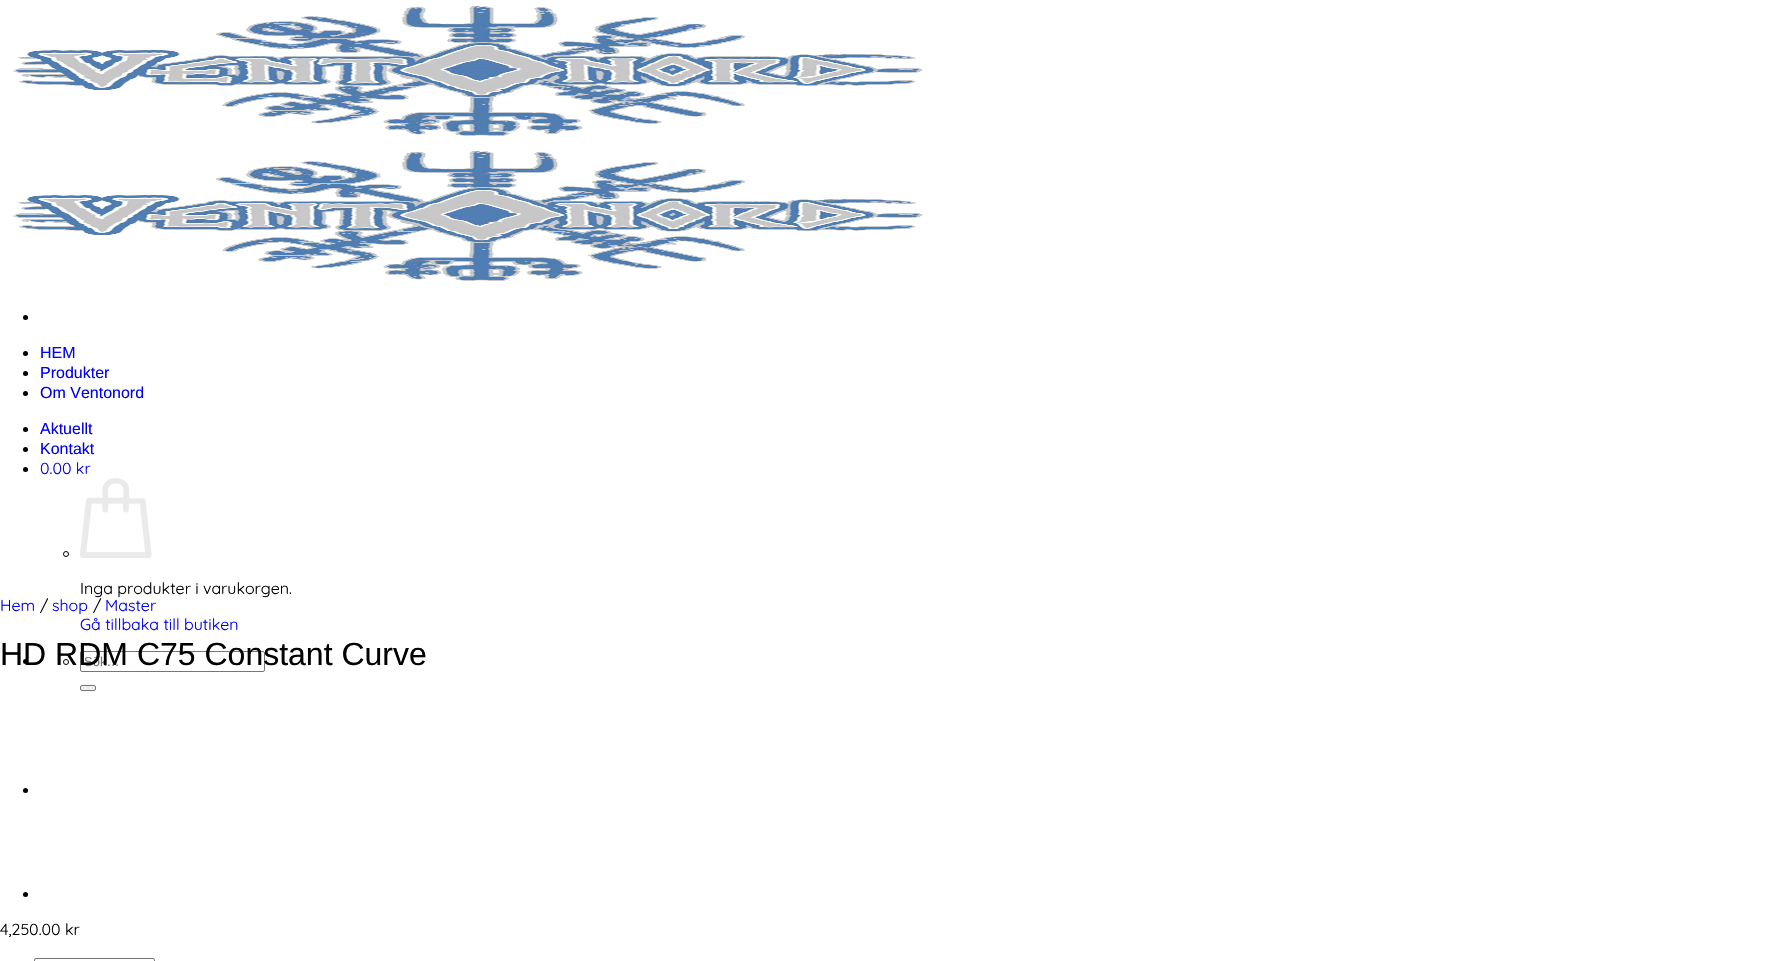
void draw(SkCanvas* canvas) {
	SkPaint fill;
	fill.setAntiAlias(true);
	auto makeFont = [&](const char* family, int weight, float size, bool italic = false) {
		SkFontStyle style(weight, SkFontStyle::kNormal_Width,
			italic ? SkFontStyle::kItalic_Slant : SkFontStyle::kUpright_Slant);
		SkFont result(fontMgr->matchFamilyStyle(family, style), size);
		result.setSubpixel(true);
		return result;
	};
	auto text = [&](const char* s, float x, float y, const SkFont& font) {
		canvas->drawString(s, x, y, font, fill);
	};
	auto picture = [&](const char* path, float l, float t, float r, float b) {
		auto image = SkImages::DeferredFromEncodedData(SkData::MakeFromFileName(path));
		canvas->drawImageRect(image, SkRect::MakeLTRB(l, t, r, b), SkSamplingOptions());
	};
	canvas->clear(0xFFFFFFFF);
	picture("image0.png", 12, 6, 923, 136);
	picture("image0.png", 12, 151, 923, 281);
	fill.setColor(0xFF000000);
	canvas->drawCircle(25.5f, 317.5f, 2.5f, fill);
	canvas->drawCircle(25.5f, 353.5f, 2.5f, fill);
	canvas->drawCircle(25.5f, 373.5f, 2.5f, fill);
	canvas->drawCircle(25.5f, 393.5f, 2.5f, fill);
	canvas->drawCircle(25.5f, 429.5f, 2.5f, fill);
	canvas->drawCircle(25.5f, 449.5f, 2.5f, fill);
	canvas->drawCircle(25.5f, 469.5f, 2.5f, fill);
	fill.setStyle(SkPaint::kStroke_Style);
	fill.setStrokeWidth(1);
	canvas->drawCircle(66, 554, 2.5f, fill);
	picture("image1.png", 80, 478, 152, 558);
	fill.setStyle(SkPaint::kFill_Style);
	canvas->drawCircle(25.5f, 661.5f, 2.5f, fill);
	fill.setStyle(SkPaint::kStroke_Style);
	canvas->drawCircle(66, 662, 2.5f, fill);
	fill.setColor(0xFF767676);
	canvas->drawRoundRect(SkRect::MakeLTRB(80.5f, 651.5f, 264.5f, 671.5f), 1.5f, 1.5f, fill);
	fill.setStyle(SkPaint::kFill_Style);
	fill.setColor(0xFFEFEFEF);
	canvas->drawRoundRect(SkRect::MakeLTRB(80.5f, 685.5f, 95.5f, 690.5f), 1.5f, 1.5f, fill);
	fill.setStyle(SkPaint::kStroke_Style);
	fill.setColor(0xFF767676);
	canvas->drawRoundRect(SkRect::MakeLTRB(80.5f, 685.5f, 95.5f, 690.5f), 1.5f, 1.5f, fill);
	fill.setStyle(SkPaint::kFill_Style);
	fill.setColor(0xFF000000);
	canvas->drawCircle(25.5f, 790.5f, 2.5f, fill);
	canvas->drawCircle(25.5f, 894.5f, 2.5f, fill);
	fill.setStyle(SkPaint::kStroke_Style);
	fill.setColor(0xFF767676);
	canvas->drawRoundRect(SkRect::MakeLTRB(34.5f, 958.5f, 154.5f, 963.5f), 1.5f, 1.5f, fill);
	auto font1 = makeFont("Liberation Sans", 400, 16);
	fill.setStyle(SkPaint::kFill_Style);
	fill.setColor(0xFF0000EE);
	text("HEM", 40, 358, font1);
	text("Produkter", 40, 378, font1);
	text("Om Ventonord", 40, 398, font1);
	text("Aktuellt", 40, 434, font1);
	text("Kontakt", 40, 454, font1);
	auto font2 = makeFont("Quicksand", 400, 16);
	text("0.00 kr", 40, 474, font2);
	fill.setColor(0xFF000000);
	text("Inga produkter i varukorgen.", 80, 594, font2);
	fill.setColor(0xFF0000EE);
	text("Gå tillbaka till butiken", 80, 630, font2);
	auto font3 = makeFont("Liberation Sans", 400, 13);
	fill.setColor(0xFF757575);
	text("Sök…", 84, 666, font3);
	fill.setColor(0xFF0000EE);
	text("Hem", 0, 611, font2);
	fill.setColor(0xFF000000);
	text("/", 40, 611, font2);
	fill.setColor(0xFF0000EE);
	text("shop", 52, 611, font2);
	fill.setColor(0xFF000000);
	text("/", 93, 611, font2);
	fill.setColor(0xFF0000EE);
	text("Master", 105, 611, font2);
	auto font4 = makeFont("Liberation Sans", 400, 32);
	fill.setColor(0xFF000000);
	text("HD RDM C75 Constant Curve", 0, 665, font4);
	text("4,250.00 kr", 0, 935, font2);
}
